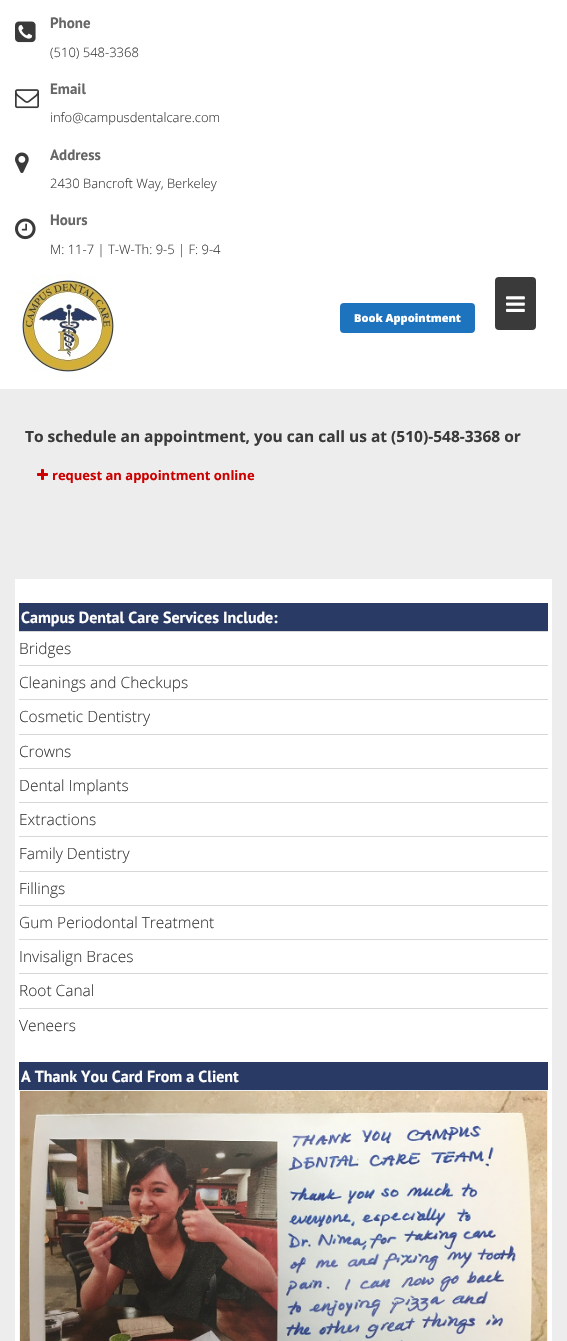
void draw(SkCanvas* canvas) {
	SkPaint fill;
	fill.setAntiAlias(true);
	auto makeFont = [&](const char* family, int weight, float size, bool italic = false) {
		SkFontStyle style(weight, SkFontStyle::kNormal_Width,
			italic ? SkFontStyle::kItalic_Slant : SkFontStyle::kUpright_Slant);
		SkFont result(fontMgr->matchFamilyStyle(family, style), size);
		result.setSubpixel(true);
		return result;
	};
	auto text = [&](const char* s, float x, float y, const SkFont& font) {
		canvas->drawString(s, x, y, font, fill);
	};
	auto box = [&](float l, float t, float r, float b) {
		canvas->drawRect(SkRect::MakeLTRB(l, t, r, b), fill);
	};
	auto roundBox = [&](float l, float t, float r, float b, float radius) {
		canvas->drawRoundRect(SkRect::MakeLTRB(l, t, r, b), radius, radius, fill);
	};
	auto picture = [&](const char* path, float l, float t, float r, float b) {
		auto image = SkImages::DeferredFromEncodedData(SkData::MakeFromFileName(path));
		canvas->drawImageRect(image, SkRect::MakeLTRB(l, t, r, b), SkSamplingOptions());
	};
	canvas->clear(0xFFEDEDED);
	fill.setColor(0xFFFFFFFF);
	box(0, 0, 567, 389);
	picture("image0.png", 15, 21, 36, 43);
	picture("image1.png", 15, 89, 39, 109);
	picture("image2.png", 15, 152, 29, 174);
	picture("image3.png", 15, 218, 36, 240);
	picture("image4.png", 16, 274, 119, 378);
	fill.setColor(0xFF3A3A3A);
	roundBox(495, 277, 536, 330, 4);
	picture("image5.png", 506, 296, 525, 312);
	fill.setColor(0xFF1E73BE);
	roundBox(340, 303, 475, 333, 4);
	picture("image6.png", 37, 469, 48, 480);
	fill.setColor(0xFFFFFFFF);
	box(15, 579, 552, 1341);
	fill.setColor(0xFF293A65);
	box(19, 603, 548, 631);
	fill.setColor(0xFFD7D7D7);
	box(19, 631, 548, 632);
	box(19, 665, 548, 666);
	box(19, 699, 548, 700);
	box(19, 734, 548, 735);
	box(19, 768, 548, 769);
	box(19, 802, 548, 803);
	box(19, 836, 548, 837);
	box(19, 871, 548, 872);
	box(19, 905, 548, 906);
	box(19, 939, 548, 940);
	box(19, 973, 548, 974);
	box(19, 1008, 548, 1009);
	fill.setColor(0xFF293A65);
	box(19, 1062, 548, 1090);
	fill.setColor(0xFFF1F1F1);
	box(19, 1090, 548, 1341);
	picture("image7.png", 20, 1091, 547, 1341);
	auto font1 = makeFont("PT Sans", 700, 15);
	fill.setColor(0xFF666666);
	text("Phone", 50, 28, font1);
	auto font2 = makeFont("Open Sans", 300, 13);
	fill.setColor(0xFF3A3A3A);
	text("(510) 548-3368", 50, 57, font2);
	fill.setColor(0xFF666666);
	text("Email", 50, 94, font1);
	fill.setColor(0xFF3A3A3A);
	text("info@campusdentalcare.com", 50, 122, font2);
	fill.setColor(0xFF666666);
	text("Address", 50, 160, font1);
	fill.setColor(0xFF3A3A3A);
	text("2430 Bancroft Way, Berkeley", 50, 188, font2);
	fill.setColor(0xFF666666);
	text("Hours", 50, 225, font1);
	fill.setColor(0xFF3A3A3A);
	text("M: 11-7 | T-W-Th: 9-5 | F: 9-4", 50, 254, font2);
	auto font3 = makeFont("Open Sans", 800, 11);
	fill.setColor(0xFFFFFFFF);
	text("Book Appointment", 354, 322, font3);
	auto font4 = makeFont("Open Sans", 700, 15.5f);
	fill.setColor(0xFF3A3A3A);
	text("To schedule an appointment, you can call us at (510)-548-3368 or", 25, 442, font4);
	auto font5 = makeFont("Open Sans", 700, 13);
	fill.setColor(0xFFCC0000);
	text("request an appointment online", 52, 480, font5);
	auto font6 = makeFont("PT Sans", 700, 16);
	fill.setColor(0xFFFFFFFF);
	text("Campus Dental Care Services Include:", 21, 623, font6);
	auto font7 = makeFont("Open Sans", 300, 15.5f);
	fill.setColor(0xFF3A3A3A);
	text("Bridges", 19, 654, font7);
	text("Cleanings and Checkups", 19, 688, font7);
	text("Cosmetic Dentistry", 19, 722, font7);
	text("Crowns", 19, 757, font7);
	text("Dental Implants", 19, 791, font7);
	text("Extractions", 19, 825, font7);
	text("Family Dentistry", 19, 859, font7);
	text("Fillings", 19, 894, font7);
	text("Gum Periodontal Treatment", 19, 928, font7);
	text("Invisalign Braces", 19, 962, font7);
	text("Root Canal", 19, 996, font7);
	text("Veneers", 19, 1031, font7);
	fill.setColor(0xFFFFFFFF);
	text("A Thank You Card From a Client", 21, 1082, font6);
}
